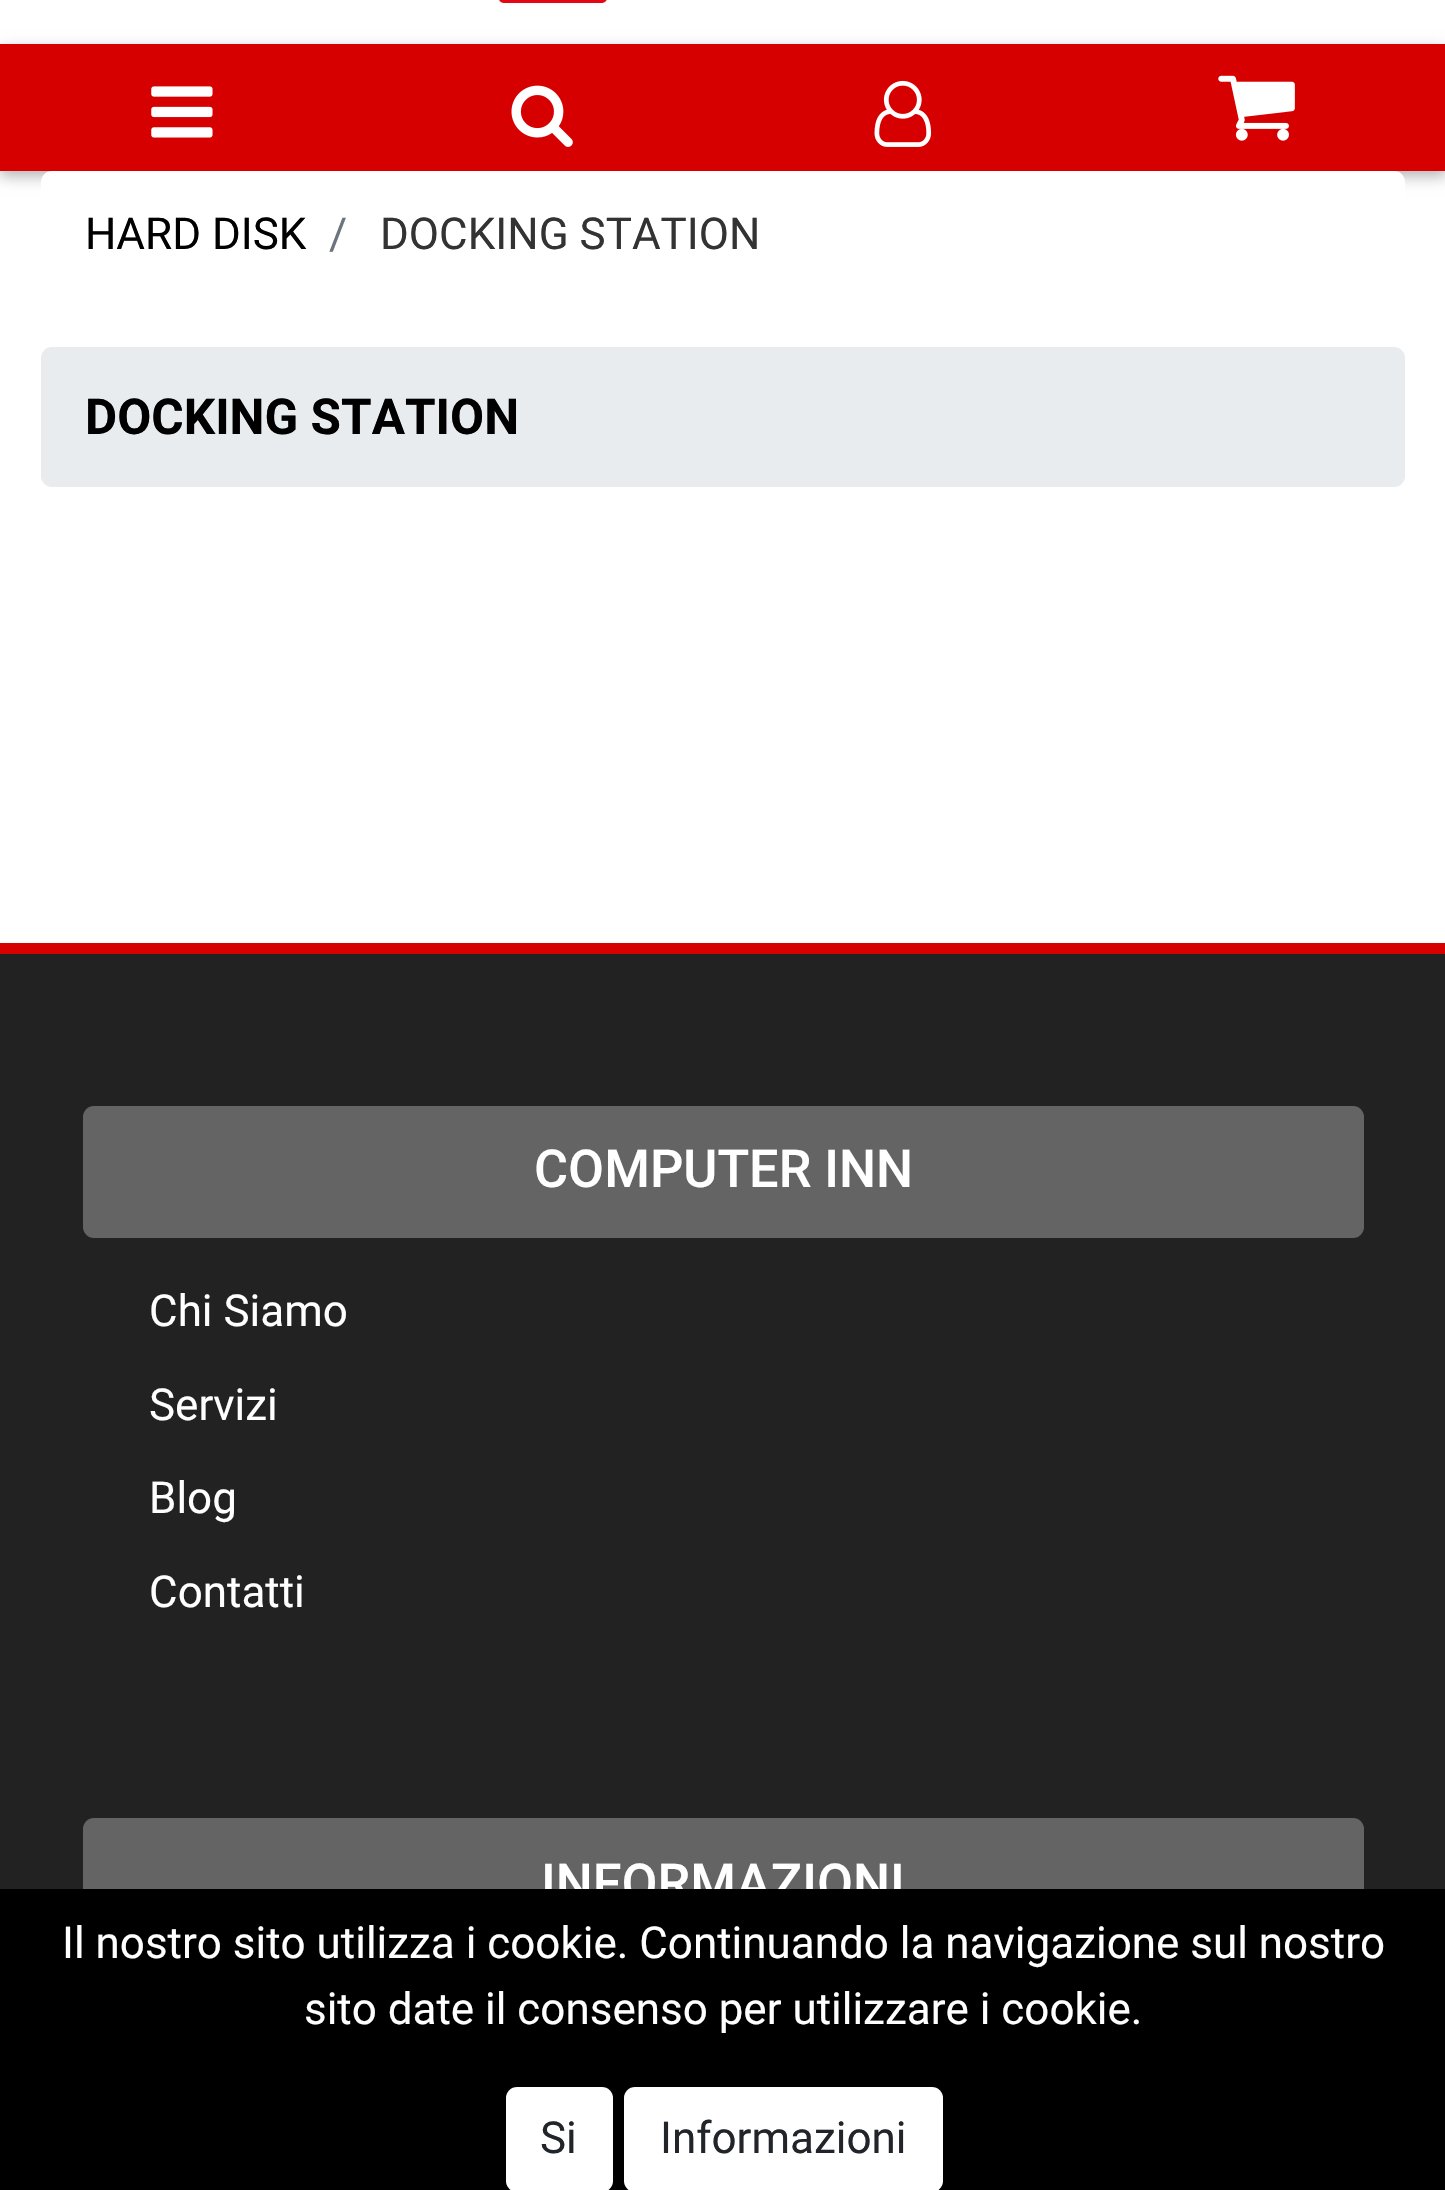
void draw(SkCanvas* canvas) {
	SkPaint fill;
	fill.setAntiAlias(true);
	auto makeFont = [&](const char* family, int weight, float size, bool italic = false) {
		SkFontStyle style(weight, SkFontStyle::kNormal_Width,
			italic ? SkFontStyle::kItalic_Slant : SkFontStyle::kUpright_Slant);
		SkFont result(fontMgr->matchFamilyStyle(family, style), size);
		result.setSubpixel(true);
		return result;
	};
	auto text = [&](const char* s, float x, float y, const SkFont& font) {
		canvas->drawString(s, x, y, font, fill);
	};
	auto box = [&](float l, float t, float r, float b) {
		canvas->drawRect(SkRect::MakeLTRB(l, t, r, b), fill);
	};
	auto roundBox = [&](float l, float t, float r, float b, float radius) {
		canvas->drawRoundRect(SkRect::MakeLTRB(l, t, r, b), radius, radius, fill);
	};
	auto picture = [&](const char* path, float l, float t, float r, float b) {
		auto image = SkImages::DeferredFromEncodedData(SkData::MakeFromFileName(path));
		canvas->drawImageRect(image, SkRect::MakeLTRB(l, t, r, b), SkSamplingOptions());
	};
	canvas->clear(0xFFFFFFFF);
	picture("image0.png", 499, 0, 607, 3);
	fill.setColor(0x4D000000);
	fill.setMaskFilter(SkMaskFilter::MakeBlur(kNormal_SkBlurStyle, 7));
	canvas->drawRect(SkRect::MakeLTRB(0, 50, 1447, 176), fill);
	fill.setMaskFilter(nullptr);
	fill.setColor(0xFFD70000);
	box(0, 44, 1445, 171);
	picture("image1.png", 151, 86, 213, 138);
	picture("image2.png", 511, 85, 573, 147);
	picture("image3.png", 874, 80, 932, 147);
	picture("image4.png", 1218, 75, 1295, 141);
	fill.setColor(0xFFFFFFFF);
	roundBox(41, 171, 1405, 303, 11);
	fill.setColor(0xFFE9ECEF);
	roundBox(41, 347, 1405, 487, 11);
	fill.setColor(0xFF222222);
	box(0, 954, 1445, 1889);
	fill.setColor(0xFFD70000);
	box(0, 943, 1445, 954);
	fill.setColor(0xFF646464);
	roundBox(83, 1106, 1364, 1238, 11);
	roundBox(83, 1818, 1364, 1953, 11);
	auto font1 = makeFont("Roboto", 400, 44);
	fill.setColor(0xFF000000);
	text("HARD DISK", 85, 249, font1);
	fill.setColor(0xFF6C757D);
	text("/", 329, 249, font1);
	fill.setColor(0xFF333333);
	text("DOCKING STATION", 380, 249, font1);
	auto font2 = makeFont("Roboto", 700, 49.5f);
	fill.setColor(0xFF000000);
	text("DOCKING STATION", 85, 434, font2);
	auto font3 = makeFont("Roboto", 500, 52.25f);
	fill.setColor(0xFFFFFFFF);
	text("COMPUTER INN", 534, 1187, font3);
	text("Chi Siamo", 149, 1326, font1);
	text("Servizi", 149, 1420, font1);
	text("Blog", 149, 1513, font1);
	text("Contatti", 149, 1607, font1);
	text("INFORMAZIONI", 541, 1901, font3);
	fill.setColor(0xFF000000);
	box(0, 1889, 1445, 2190);
	fill.setColor(0xFFFFFFFF);
	text("Il nostro sito utilizza i cookie. Continuando la navigazione sul nostro", 62, 1958, font1);
	text("sito date il consenso per utilizzare i cookie.", 304, 2024, font1);
	roundBox(506, 2087, 613, 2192, 11);
	fill.setColor(0xFF212529);
	text("Si", 540, 2153, font1);
	fill.setColor(0xFFFFFFFF);
	roundBox(624, 2087, 943, 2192, 11);
	fill.setColor(0xFF212529);
	text("Informazioni", 660, 2153, font1);
}
